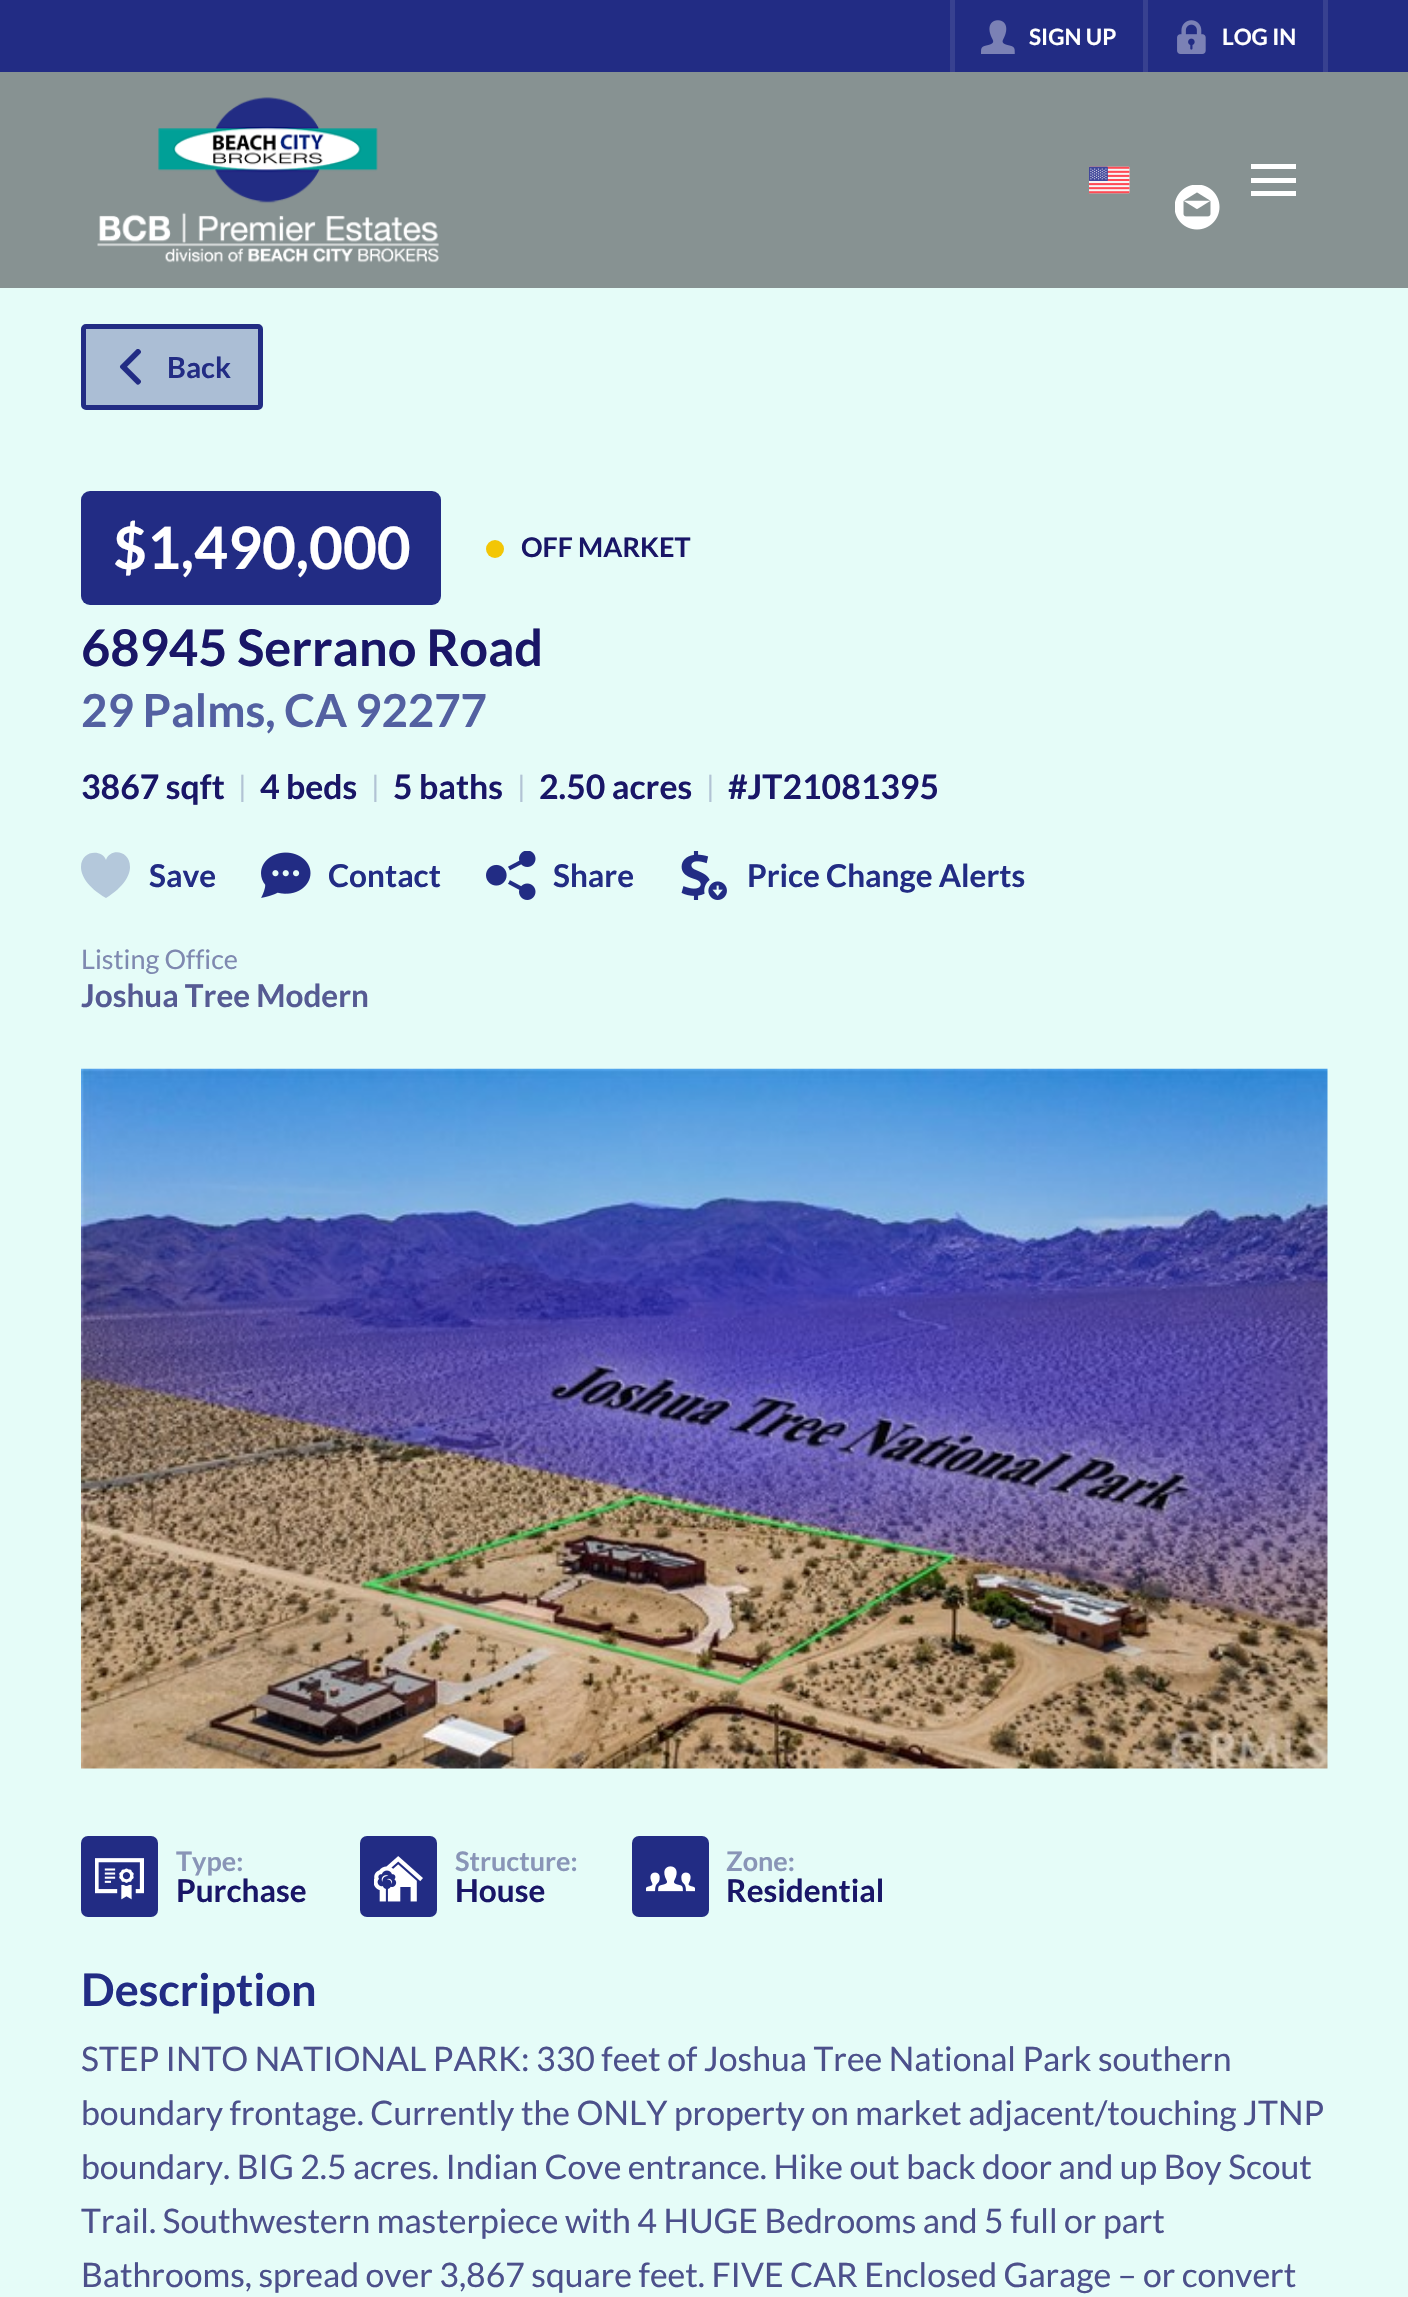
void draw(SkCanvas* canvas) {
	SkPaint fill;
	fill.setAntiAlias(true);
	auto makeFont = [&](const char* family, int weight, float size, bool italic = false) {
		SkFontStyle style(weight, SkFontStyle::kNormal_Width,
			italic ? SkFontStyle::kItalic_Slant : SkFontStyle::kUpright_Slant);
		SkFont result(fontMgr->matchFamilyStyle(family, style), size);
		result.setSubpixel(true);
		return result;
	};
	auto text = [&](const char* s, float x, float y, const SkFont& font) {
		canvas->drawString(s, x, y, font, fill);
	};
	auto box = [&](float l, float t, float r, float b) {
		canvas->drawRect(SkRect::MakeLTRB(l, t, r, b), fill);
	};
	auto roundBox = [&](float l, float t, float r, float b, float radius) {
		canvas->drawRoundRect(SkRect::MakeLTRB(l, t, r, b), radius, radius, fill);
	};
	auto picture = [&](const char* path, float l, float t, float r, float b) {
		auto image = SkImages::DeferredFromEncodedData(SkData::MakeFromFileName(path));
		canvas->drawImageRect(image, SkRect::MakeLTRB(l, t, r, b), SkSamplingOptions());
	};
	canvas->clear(0xFFE5FCF8);
	fill.setColor(0xFF222C84);
	box(0, 0, 1408, 72);
	fill.setColor(0xFF384190);
	box(1323, 0, 1328, 72);
	box(950, 0, 955, 72);
	picture("image0.png", 981, 20, 1015, 54);
	box(1143, 0, 1148, 72);
	picture("image1.png", 1177, 20, 1206, 54);
	fill.setColor(0xFF879292);
	box(0, 72, 1408, 288);
	picture("image2.png", 97, 97, 439, 263);
	picture("image3.png", 1089, 166, 1130, 194);
	fill.setColor(0xFFFFFFFF);
	box(1251, 164, 1296, 169);
	box(1251, 178, 1296, 183);
	box(1251, 191, 1296, 196);
	picture("image4.png", 1175, 185, 1220, 230);
	fill.setColor(0xFFABBED5);
	canvas->drawRoundRect(SkRect::MakeLTRB(83.5f, 326.5f, 260.5f, 407.5f), 2.5f, 2.5f, fill);
	fill.setStyle(SkPaint::kStroke_Style);
	fill.setStrokeWidth(5);
	fill.setColor(0xFF222C84);
	canvas->drawRoundRect(SkRect::MakeLTRB(83.5f, 326.5f, 260.5f, 407.5f), 2.5f, 2.5f, fill);
	picture("image5.png", 119, 349, 141, 385);
	fill.setStyle(SkPaint::kFill_Style);
	roundBox(81, 491, 441, 605, 9);
	fill.setColor(0xFFF3C605);
	canvas->drawCircle(495, 549, 9, fill);
	fill.setColor(0xFFB4C8DB);
	canvas->drawPath(SkPathBuilder().moveTo(106, 860).cubicTo(102, 849, 81, 850, 81, 867).cubicTo(81, 875, 87, 887, 106, 898).cubicTo(124, 887, 130, 875, 130, 867).cubicTo(130, 850, 110, 848, 106, 860).close().detach(), fill);
	picture("image6.png", 261, 852, 311, 898);
	picture("image7.png", 486, 851, 536, 900);
	picture("image8.png", 681, 851, 727, 900);
	picture("image9.png", 81, 1068, 1328, 1769);
	fill.setColor(0xFF222C84);
	roundBox(81, 1836, 158, 1917, 7);
	picture("image10.png", 95, 1858, 144, 1900);
	roundBox(360, 1836, 437, 1917, 7);
	picture("image11.png", 374, 1856, 423, 1902);
	roundBox(632, 1836, 709, 1917, 7);
	picture("image12.png", 646, 1866, 695, 1892);
	auto font1 = makeFont("Lato", 700, 22.5f);
	fill.setColor(0xFFFFFFFF);
	text("SIGN UP", 1029, 45, font1);
	text("LOG IN", 1222, 45, font1);
	auto font2 = makeFont("Lato", 700, 29);
	fill.setColor(0xFF222C84);
	text("Back", 167, 378, font2);
	auto font3 = makeFont("Lato", 700, 58.5f);
	fill.setColor(0xFFFFFFFF);
	text("$1,490,000", 113, 569, font3);
	auto font4 = makeFont("Lato", 700, 27);
	fill.setColor(0xFF191667);
	text("OFF MARKET", 521, 557, font4);
	auto font5 = makeFont("Lato", 700, 50.5f);
	text("68945 Serrano Road", 81, 666, font5);
	auto font6 = makeFont("Lato", 700, 45.5f);
	fill.setColor(0xFF5360A1);
	text("29 Palms, CA", 81, 727, font6);
	text("92277", 355, 727, font6);
	auto font7 = makeFont("Lato", 700, 33.75f);
	fill.setColor(0xFF191667);
	text("3867 sqft", 81, 799, font7);
	auto font8 = makeFont("Lato", 400, 29);
	fill.setColor(0xFFB2C3D4);
	text("|", 238, 797, font8);
	fill.setColor(0xFF191667);
	text("4 beds", 260, 799, font7);
	fill.setColor(0xFFB2C3D4);
	text("|", 371, 797, font8);
	fill.setColor(0xFF191667);
	text("5 baths", 393, 799, font7);
	fill.setColor(0xFFB2C3D4);
	text("|", 517, 797, font8);
	fill.setColor(0xFF191667);
	text("2.50 acres", 539, 799, font7);
	fill.setColor(0xFFB2C3D4);
	text("|", 706, 797, font8);
	fill.setColor(0xFF191667);
	text("#JT21081395", 728, 799, font7);
	auto font9 = makeFont("Lato", 700, 31.5f);
	fill.setColor(0xFF222C84);
	text("Save", 149, 887, font9);
	text("Contact", 328, 887, font9);
	text("Share", 553, 887, font9);
	text("Price Change Alerts", 747, 887, font9);
	auto font10 = makeFont("Lato", 400, 27);
	fill.setColor(0xFF7F89B0);
	text("Listing Office", 81, 969, font10);
	fill.setColor(0xFF565B93);
	text("Joshua Tree Modern", 81, 1007, font9);
	fill.setColor(0xFF8995B7);
	text("Type:", 176, 1871, font4);
	fill.setColor(0xFF191667);
	text("Purchase", 176, 1902, font9);
	fill.setColor(0xFF8995B7);
	text("Structure:", 455, 1871, font4);
	fill.setColor(0xFF191667);
	text("House", 455, 1902, font9);
	fill.setColor(0xFF8995B7);
	text("Zone:", 726, 1871, font4);
	fill.setColor(0xFF191667);
	text("Residential", 726, 1902, font9);
	auto font11 = makeFont("Lato", 700, 45);
	fill.setColor(0xFF222C84);
	text("Description", 81, 2006, font11);
	auto font12 = makeFont("Lato", 400, 33.75f);
	fill.setColor(0xFF4C508B);
	text("STEP INTO NATIONAL PARK: 330 feet of Joshua Tree National Park southern", 81, 2071, font12);
	text("boundary frontage. Currently the ONLY property on market adjacent/touching JTNP", 81, 2125, font12);
	text("boundary. BIG 2.5 acres. Indian Cove entrance. Hike out back door and up Boy Scout", 81, 2179, font12);
	text("Trail. Southwestern masterpiece with 4 HUGE Bedrooms and 5 full or part", 81, 2233, font12);
	text("Bathrooms, spread over 3,867 square feet. FIVE CAR Enclosed Garage – or convert", 81, 2287, font12);
}
